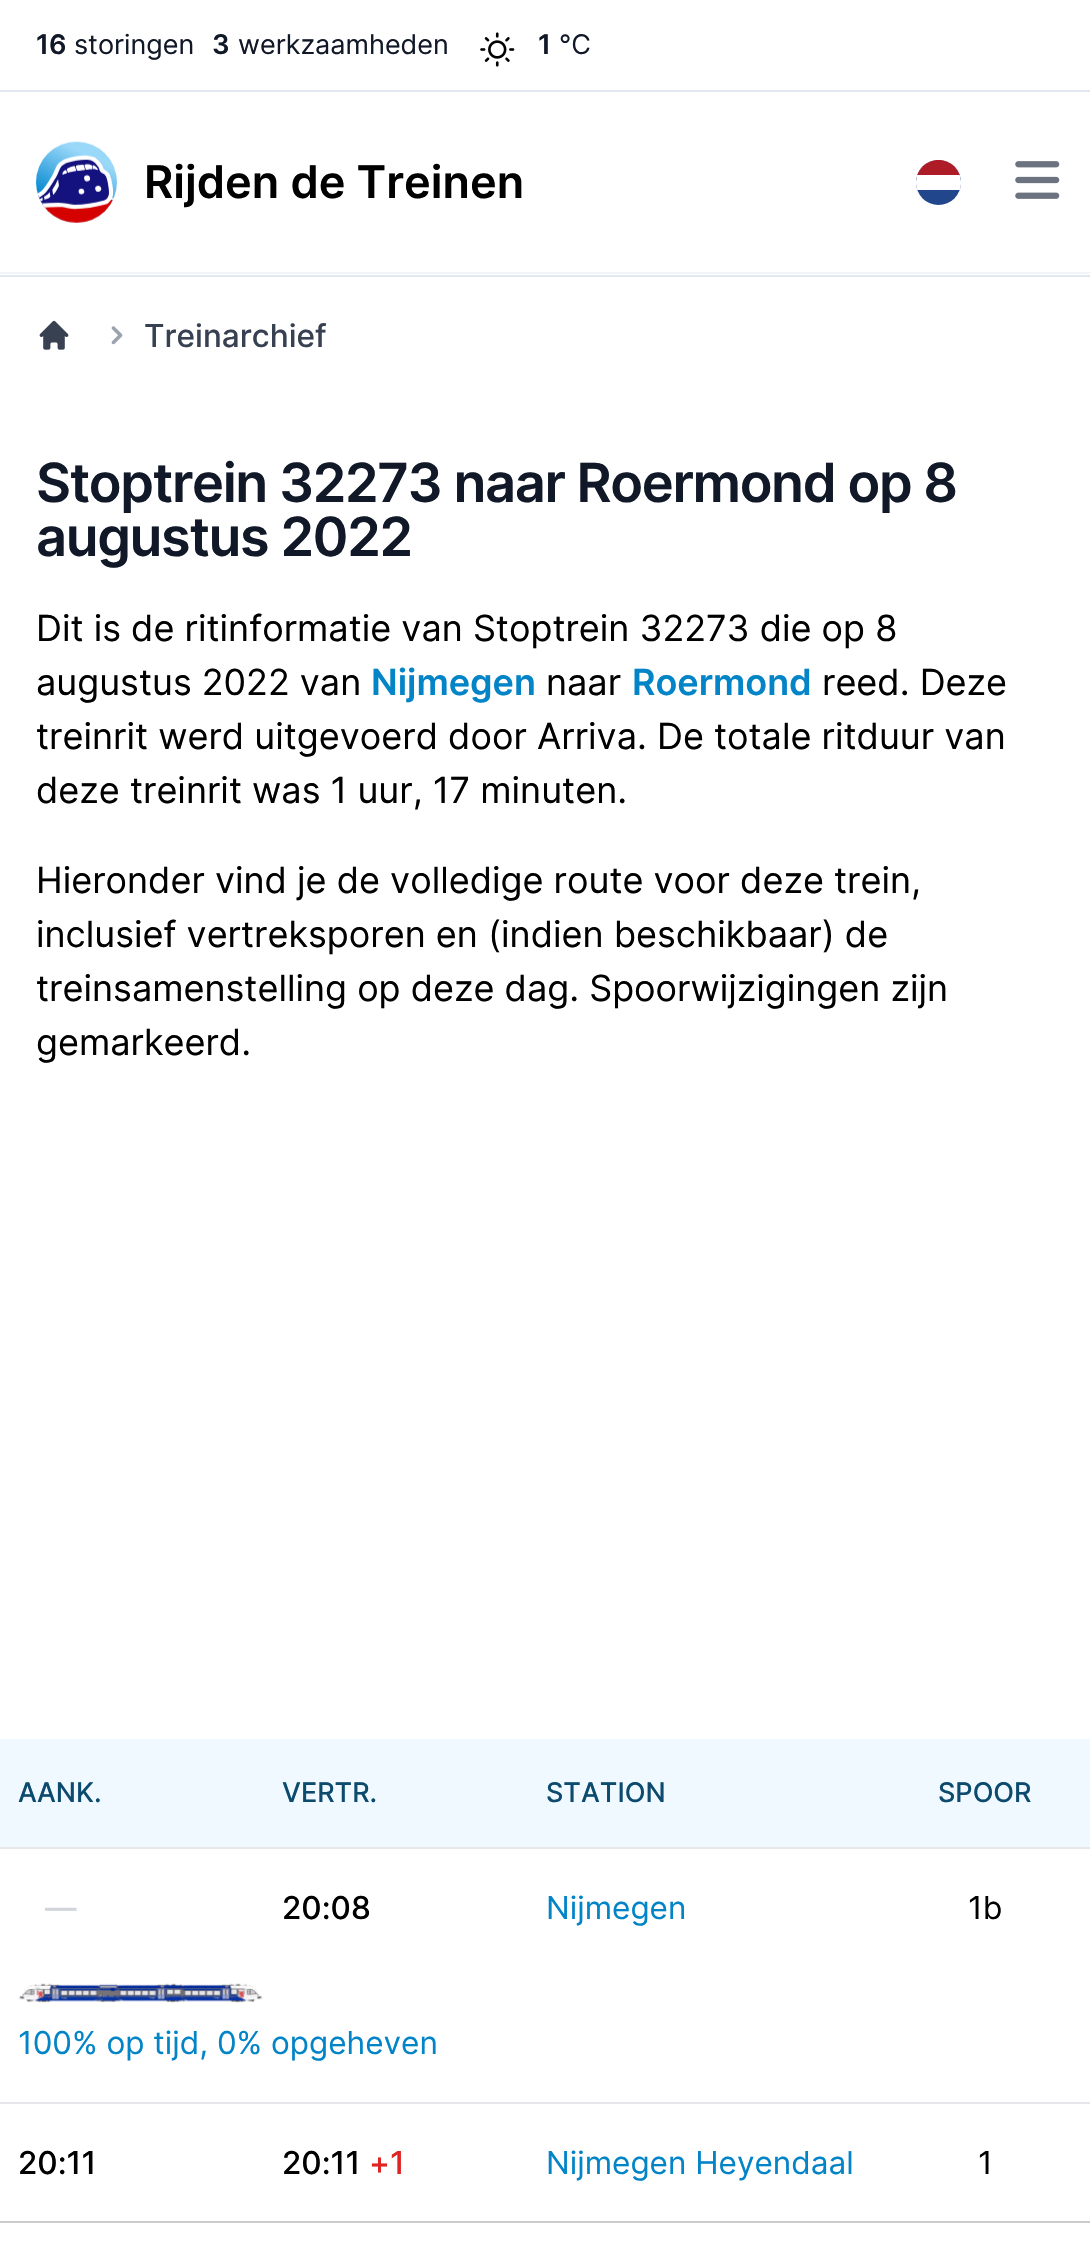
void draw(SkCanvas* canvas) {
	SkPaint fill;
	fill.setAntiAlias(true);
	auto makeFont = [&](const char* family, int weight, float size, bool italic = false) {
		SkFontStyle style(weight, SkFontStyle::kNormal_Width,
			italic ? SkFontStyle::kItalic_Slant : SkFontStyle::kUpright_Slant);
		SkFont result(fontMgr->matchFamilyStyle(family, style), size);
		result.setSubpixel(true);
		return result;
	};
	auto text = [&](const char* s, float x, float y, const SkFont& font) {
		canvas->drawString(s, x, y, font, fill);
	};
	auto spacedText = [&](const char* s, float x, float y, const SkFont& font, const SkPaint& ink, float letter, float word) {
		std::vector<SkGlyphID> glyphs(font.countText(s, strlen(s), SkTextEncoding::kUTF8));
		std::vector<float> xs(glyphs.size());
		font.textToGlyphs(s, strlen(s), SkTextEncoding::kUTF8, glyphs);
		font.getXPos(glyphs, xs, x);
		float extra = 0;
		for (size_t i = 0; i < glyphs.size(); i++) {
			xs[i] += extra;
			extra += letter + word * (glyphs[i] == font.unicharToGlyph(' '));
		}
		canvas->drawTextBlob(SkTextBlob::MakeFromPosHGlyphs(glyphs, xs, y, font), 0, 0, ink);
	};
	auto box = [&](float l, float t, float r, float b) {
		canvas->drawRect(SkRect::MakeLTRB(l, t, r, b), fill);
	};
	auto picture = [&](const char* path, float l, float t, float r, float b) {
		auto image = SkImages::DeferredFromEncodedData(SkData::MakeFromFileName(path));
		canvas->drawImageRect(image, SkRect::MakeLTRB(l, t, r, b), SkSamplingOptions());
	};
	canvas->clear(0xFFFFFFFF);
	fill.setColor(0xFFE2E8F0);
	box(0, 90, 1090, 92);
	picture("image0.png", 480, 32, 515, 67);
	fill.setColor(0xFFF1F5F9);
	box(0, 272, 1090, 274);
	picture("image1.png", 36, 141, 117, 223);
	fill.setColor(0xFF21468B);
	canvas->drawCircle(938.5f, 182.5f, 22.5f, fill);
	canvas->save();
	canvas->clipPath(SkPathBuilder().moveTo(938.5f, 160).cubicTo(951, 160, 961, 170, 961, 182.5f).cubicTo(961, 195, 951, 205, 938.5f, 205).cubicTo(926, 205, 916, 195, 916, 182.5f).cubicTo(916, 170, 926, 160, 938.5f, 160).close().detach(), true);
	fill.setColor(0xFFFFFFFF);
	canvas->drawPath(SkPathBuilder().moveTo(938.5f, 160).cubicTo(951, 160, 961, 170, 961, 182.5f).lineTo(961, 190).lineTo(916, 190).lineTo(916, 182.5f).cubicTo(916, 170, 926, 160, 938.5f, 160).close().detach(), fill);
	fill.setColor(0xFFAE1C28);
	box(917, 160, 960, 175);
	canvas->restore();
	picture("image2.png", 1015, 161, 1060, 199);
	fill.setColor(0xFFE2E8F0);
	box(0, 275, 1090, 277);
	picture("image3.png", 39, 320, 69, 350);
	picture("image4.png", 111, 326, 123, 345);
	fill.setColor(0xFFF0F9FF);
	box(0, 1739, 1090, 1847);
	fill.setColor(0xFFE5E7EB);
	box(0, 1847, 1090, 1849);
	box(0, 2102, 1090, 2104);
	picture("image5.png", 18, 1983, 263, 2003);
	fill.setColor(0xFFCCCCCC);
	box(0, 2221, 1090, 2223);
	auto font1 = makeFont("Inter", 600, 27);
	fill.setColor(0xFF111827);
	text("16", 36, 54, font1);
	auto font2 = makeFont("Inter", 400, 27);
	text("storingen", 74, 54, font2);
	text("3", 212, 54, font1);
	text("werkzaamheden", 238, 54, font2);
	text("1", 538, 54, font1);
	text("°C", 559, 54, font2);
	auto font3 = makeFont("Inter", 600, 45);
	fill.setColor(0xFF000000);
	text("Rijden de Treinen", 144, 198, font3);
	auto font4 = makeFont("Inter", 500, 31.5f);
	fill.setColor(0xFF374151);
	text("Treinarchief", 144, 347, font4);
	auto font5 = makeFont("Inter", 600, 54);
	fill.setColor(0xFF111827);
	spacedText("Stoptrein 32273 naar Roermond op 8", 36, 502, font5, fill, -1.35f, 0);
	spacedText("augustus 2022", 36, 556, font5, fill, -1.35f, 0);
	auto font6 = makeFont("Inter", 400, 36);
	fill.setColor(0xFF000000);
	text("Dit is de ritinformatie van Stoptrein 32273 die op 8", 36, 641, font6);
	text("augustus 2022 van", 36, 695, font6);
	auto font7 = makeFont("Inter", 600, 36);
	fill.setColor(0xFF0284C7);
	text("Nijmegen", 371, 695, font7);
	fill.setColor(0xFF000000);
	text("naar", 546, 695, font6);
	fill.setColor(0xFF0284C7);
	text("Roermond", 632, 695, font7);
	fill.setColor(0xFF000000);
	text("reed. Deze", 822, 695, font6);
	text("treinrit werd uitgevoerd door Arriva. De totale ritduur van", 36, 749, font6);
	text("deze treinrit was 1 uur, 17 minuten.", 36, 803, font6);
	text("Hieronder vind je de volledige route voor deze trein,", 36, 893, font6);
	text("inclusief vertreksporen en (indien beschikbaar) de", 36, 947, font6);
	text("treinsamenstelling op deze dag. Spoorwijzigingen zijn", 36, 1001, font6);
	text("gemarkeerd.", 36, 1055, font6);
	auto font8 = makeFont("Inter", 500, 27);
	fill.setColor(0xFF0C4A6E);
	text("AANK.", 18, 1802, font8);
	text("VERTR.", 282, 1802, font8);
	text("STATION", 546, 1802, font8);
	text("SPOOR", 938, 1802, font8);
	fill.setColor(0xFFD1D5DB);
	text("—", 45, 1919, font4);
	fill.setColor(0xFF000000);
	text("20:08", 282, 1919, font4);
	auto font9 = makeFont("Inter", 400, 31.5f);
	fill.setColor(0xFF0284C7);
	text("Nijmegen", 546, 1919, font9);
	fill.setColor(0xFF000000);
	text("1b", 968, 1919, font9);
	fill.setColor(0xFF0284C7);
	text("100% op tijd, 0% opgeheven", 18, 2054, font9);
	fill.setColor(0xFF000000);
	text("20:11", 18, 2174, font4);
	text("20:11", 282, 2174, font4);
	fill.setColor(0xFFE02424);
	text("+1", 369, 2174, font4);
	fill.setColor(0xFF0284C7);
	text("Nijmegen Heyendaal", 546, 2174, font9);
	fill.setColor(0xFF000000);
	text("1", 978, 2174, font9);
}
